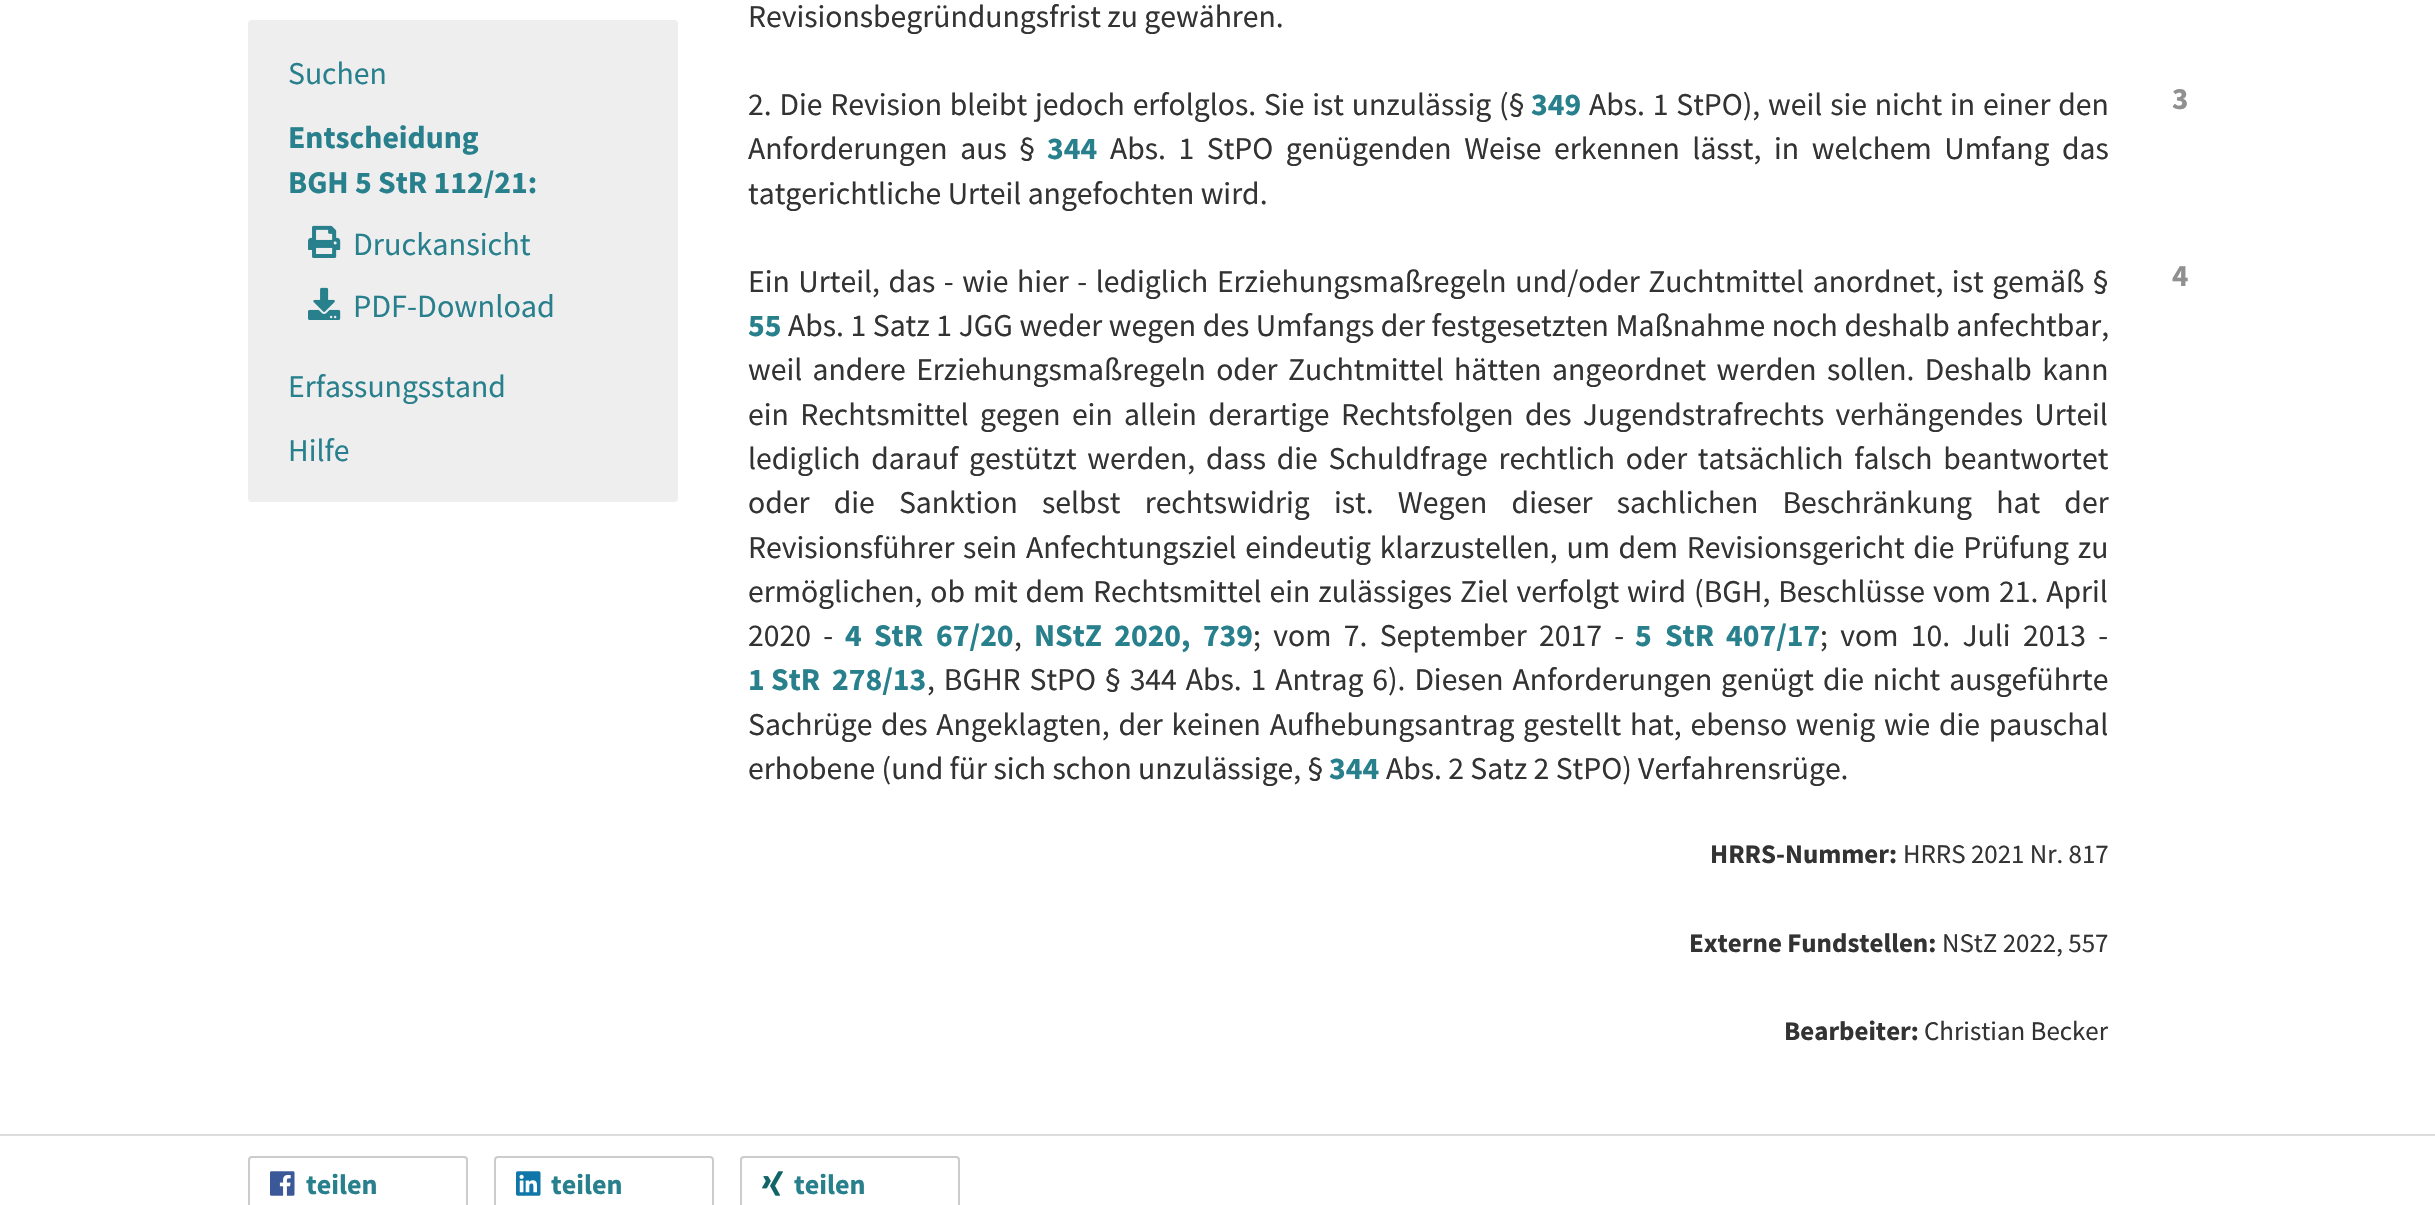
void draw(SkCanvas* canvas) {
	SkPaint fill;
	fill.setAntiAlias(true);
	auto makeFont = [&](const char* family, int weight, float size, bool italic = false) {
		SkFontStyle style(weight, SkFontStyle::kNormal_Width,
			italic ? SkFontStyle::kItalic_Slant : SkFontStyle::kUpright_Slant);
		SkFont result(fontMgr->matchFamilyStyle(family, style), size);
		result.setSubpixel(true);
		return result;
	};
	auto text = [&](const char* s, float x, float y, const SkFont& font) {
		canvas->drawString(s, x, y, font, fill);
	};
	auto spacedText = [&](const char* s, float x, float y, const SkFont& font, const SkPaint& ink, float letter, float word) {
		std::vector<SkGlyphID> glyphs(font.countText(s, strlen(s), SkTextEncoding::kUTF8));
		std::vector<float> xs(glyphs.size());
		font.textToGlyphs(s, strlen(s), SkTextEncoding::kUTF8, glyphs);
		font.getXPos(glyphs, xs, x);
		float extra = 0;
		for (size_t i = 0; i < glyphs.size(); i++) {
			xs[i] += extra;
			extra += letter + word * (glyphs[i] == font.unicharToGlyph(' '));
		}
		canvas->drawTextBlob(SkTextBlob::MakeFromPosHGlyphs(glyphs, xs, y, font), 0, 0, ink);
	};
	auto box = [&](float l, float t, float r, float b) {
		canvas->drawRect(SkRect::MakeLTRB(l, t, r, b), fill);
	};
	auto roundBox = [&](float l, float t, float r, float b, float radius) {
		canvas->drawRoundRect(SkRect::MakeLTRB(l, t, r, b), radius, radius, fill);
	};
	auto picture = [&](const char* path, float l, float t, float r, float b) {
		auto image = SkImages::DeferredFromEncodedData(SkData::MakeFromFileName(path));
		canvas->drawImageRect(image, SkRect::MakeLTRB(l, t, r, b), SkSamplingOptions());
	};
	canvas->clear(0xFFFFFFFF);
	fill.setColor(0xFFEEEEEE);
	roundBox(248, 20, 678, 502, 4);
	picture("image0.png", 308, 225, 341, 258);
	picture("image1.png", 308, 287, 341, 320);
	fill.setColor(0xFFDDDDDD);
	box(0, 1134, 2435, 1136);
	fill.setStyle(SkPaint::kStroke_Style);
	fill.setStrokeWidth(2);
	fill.setColor(0xFFCCCCCC);
	canvas->drawRoundRect(SkRect::MakeLTRB(249, 1157, 467, 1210), 3, 3, fill);
	picture("image2.png", 270, 1171, 295, 1196);
	canvas->drawRoundRect(SkRect::MakeLTRB(495, 1157, 713, 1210), 3, 3, fill);
	picture("image3.png", 516, 1171, 541, 1196);
	canvas->drawRoundRect(SkRect::MakeLTRB(741, 1157, 959, 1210), 3, 3, fill);
	picture("image4.png", 762, 1171, 783, 1196);
	auto font1 = makeFont("Source Sans Pro", 400, 31.65f);
	fill.setStyle(SkPaint::kFill_Style);
	fill.setColor(0xFF28808D);
	text("Suchen", 288, 84, font1);
	auto font2 = makeFont("Source Sans Pro", 700, 31.65f);
	text("Entscheidung", 288, 148, font2);
	text("BGH 5 StR 112/21:", 288, 193, font2);
	auto font3 = makeFont("Source Sans Pro", 400, 32.25f);
	text("Druckansicht", 353, 255, font3);
	text("PDF-Download", 353, 317, font3);
	text("Erfassungsstand", 288, 397, font1);
	text("Hilfe", 288, 461, font1);
	fill.setColor(0xFF333333);
	text("Revisionsbegründungsfrist zu gewähren.", 748, 27, font1);
	spacedText("2. Die Revision bleibt jedoch erfolglos. Sie ist unzulässig (§", 748, 115, font1, fill, 0, 1.5f);
	fill.setColor(0xFF28808D);
	text("349", 1531, 115, font2);
	fill.setColor(0xFF333333);
	spacedText("Abs. 1 StPO), weil sie nicht in einer den", 1589, 115, font1, fill, 0, 1.5f);
	spacedText("Anforderungen aus §", 748, 159, font1, fill, 0, 6.25f);
	fill.setColor(0xFF28808D);
	text("344", 1047, 159, font2);
	fill.setColor(0xFF333333);
	spacedText("Abs. 1 StPO genügenden Weise erkennen lässt, in welchem Umfang das", 1110, 159, font1, fill, 0, 6.25f);
	text("tatgerichtliche Urteil angefochten wird.", 748, 204, font1);
	auto font4 = makeFont("Source Sans Pro", 700, 31);
	fill.setColor(0xFF909090);
	text("3", 2172, 109, font4);
	fill.setColor(0xFF333333);
	spacedText("Ein Urteil, das - wie hier - lediglich Erziehungsmaßregeln und/oder Zuchtmittel anordnet, ist gemäß §", 748, 292, font1, fill, 0, 2.25f);
	fill.setColor(0xFF28808D);
	text("55", 748, 336, font2);
	fill.setColor(0xFF333333);
	spacedText("Abs. 1 Satz 1 JGG weder wegen des Umfangs der festgesetzten Maßnahme noch deshalb anfechtbar,", 788, 336, font1, fill, 0, 0.25f);
	spacedText("weil andere Erziehungsmaßregeln oder Zuchtmittel hätten angeordnet werden sollen. Deshalb kann", 748, 380, font1, fill, 0, 4);
	spacedText("ein Rechtsmittel gegen ein allein derartige Rechtsfolgen des Jugendstrafrechts verhängendes Urteil", 748, 425, font1, fill, 0, 5);
	spacedText("lediglich darauf gestützt werden, dass die Schuldfrage rechtlich oder tatsächlich falsch beantwortet", 748, 469, font1, fill, 0, 4.4f);
	spacedText("oder die Sanktion selbst rechtswidrig ist. Wegen dieser sachlichen Beschränkung hat der", 748, 513, font1, fill, 0, 17.9f);
	spacedText("Revisionsführer sein Anfechtungsziel eindeutig klarzustellen, um dem Revisionsgericht die Prüfung zu", 748, 558, font1, fill, 0, 2.4f);
	spacedText("ermöglichen, ob mit dem Rechtsmittel ein zulässiges Ziel verfolgt wird (BGH, Beschlüsse vom 21. April", 748, 602, font1, fill, 0, 1.6f);
	spacedText("2020 -", 748, 646, font1, fill, 0, 6);
	fill.setColor(0xFF28808D);
	text("4", 845, 646, font2);
	text("StR", 874, 646, font2);
	text("67/20", 936, 646, font2);
	fill.setColor(0xFF333333);
	text(",", 1014, 646, font1);
	fill.setColor(0xFF28808D);
	spacedText("NStZ 2020, 739", 1034, 646, font2, fill, 0, 6);
	fill.setColor(0xFF333333);
	spacedText("; vom 7. September 2017 -", 1253, 646, font1, fill, 0, 6);
	fill.setColor(0xFF28808D);
	text("5", 1635, 646, font2);
	text("StR", 1665, 646, font2);
	text("407/17", 1726, 646, font2);
	fill.setColor(0xFF333333);
	spacedText("; vom 10. Juli 2013 -", 1820, 646, font1, fill, 0, 6);
	fill.setColor(0xFF28808D);
	text("1 StR", 748, 690, font2);
	text("278/13", 832, 690, font2);
	fill.setColor(0xFF333333);
	spacedText(", BGHR StPO § 344 Abs. 1 Antrag 6). Diesen Anforderungen genügt die nicht ausgeführte", 927, 690, font1, fill, 0, 2.6f);
	spacedText("Sachrüge des Angeklagten, der keinen Aufhebungsantrag gestellt hat, ebenso wenig wie die pauschal", 748, 735, font1, fill, 0, 2.4f);
	text("erhobene (und für sich schon unzulässige, §", 748, 779, font1);
	fill.setColor(0xFF28808D);
	text("344", 1329, 779, font2);
	fill.setColor(0xFF333333);
	text("Abs. 2 Satz 2 StPO) Verfahrensrüge.", 1386, 779, font1);
	fill.setColor(0xFF909090);
	text("4", 2172, 286, font4);
	auto font5 = makeFont("Source Sans Pro", 700, 26.9f);
	fill.setColor(0xFF333333);
	text("HRRS-Nummer:", 1710, 863, font5);
	auto font6 = makeFont("Source Sans Pro", 400, 26.9f);
	text("HRRS 2021 Nr. 817", 1903, 863, font6);
	text("Externe Fundstellen:", 1689, 952, font5);
	text("NStZ 2022, 557", 1942, 952, font6);
	text("Bearbeiter:", 1784, 1040, font5);
	text("Christian Becker", 1924, 1040, font6);
	auto font7 = makeFont("Source Sans Pro", 700, 28);
	fill.setColor(0xFF28808D);
	text("teilen", 306, 1194, font7);
	text("teilen", 551, 1194, font7);
	text("teilen", 794, 1194, font7);
}
